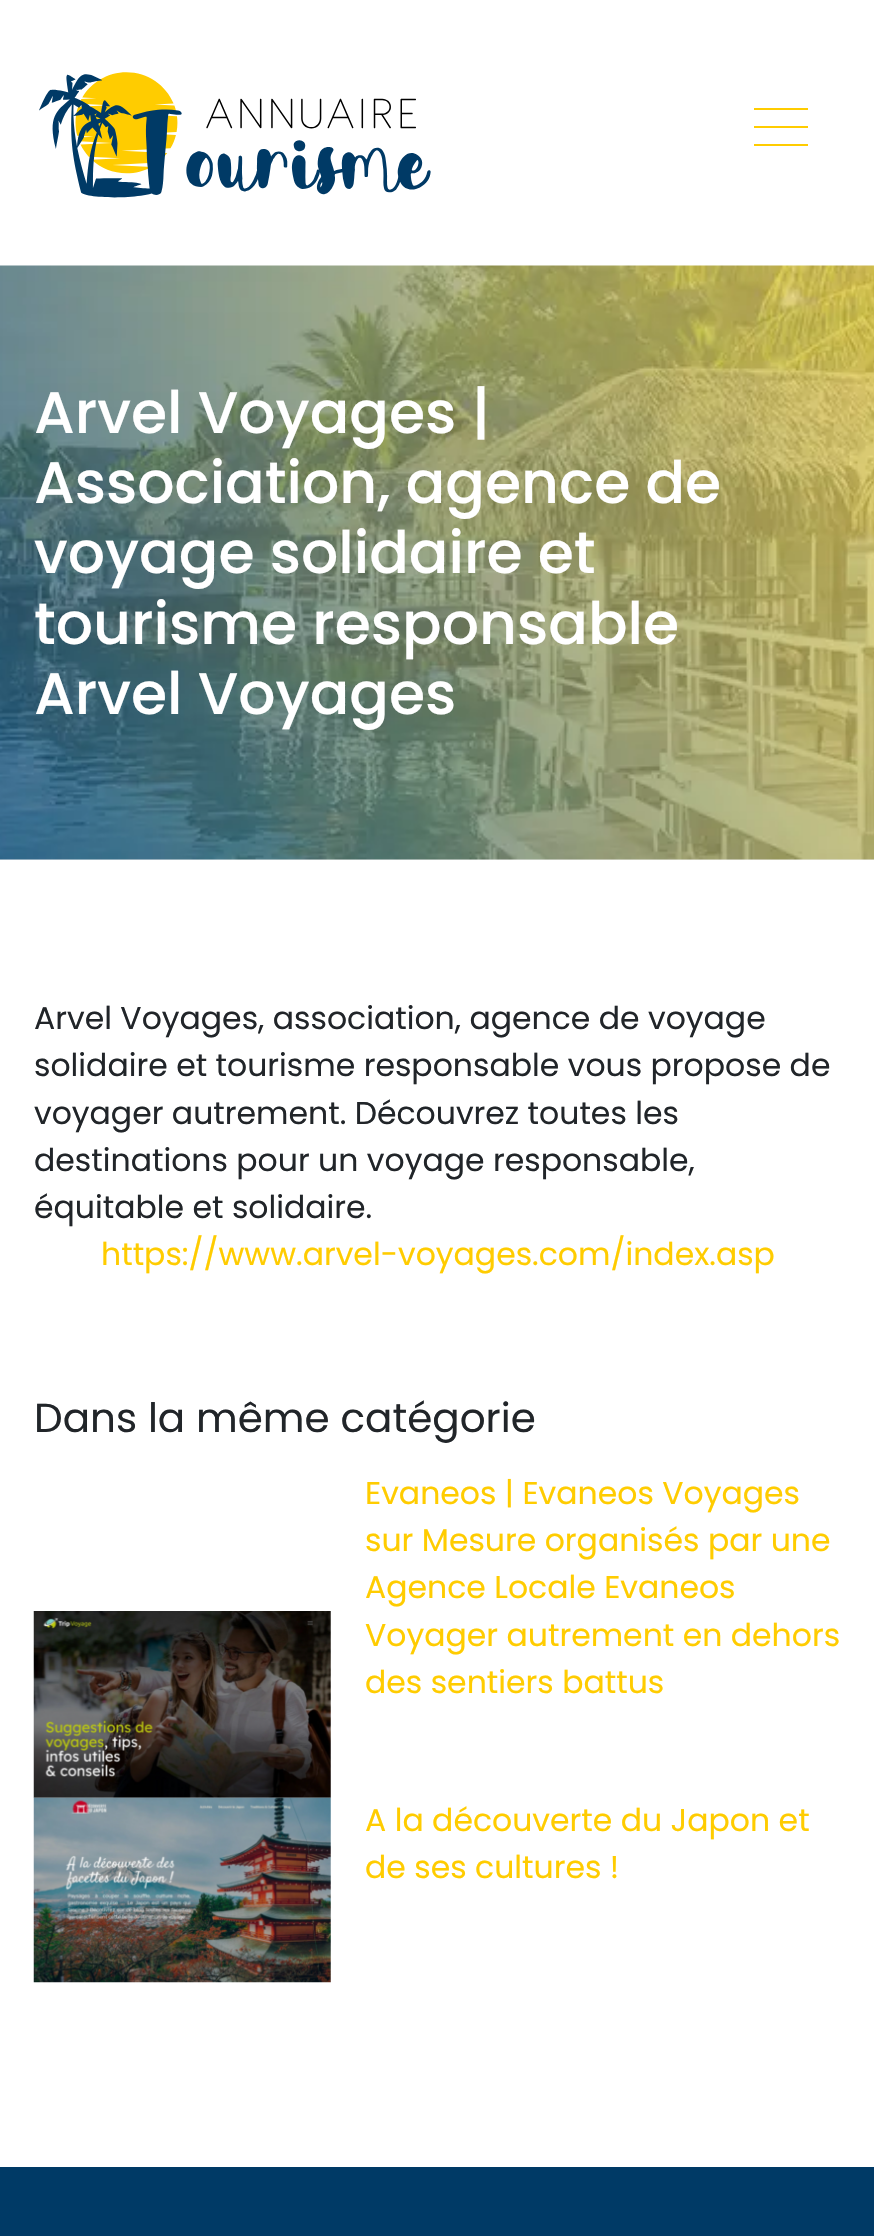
void draw(SkCanvas* canvas) {
	SkPaint fill;
	fill.setAntiAlias(true);
	auto makeFont = [&](const char* family, int weight, float size, bool italic = false) {
		SkFontStyle style(weight, SkFontStyle::kNormal_Width,
			italic ? SkFontStyle::kItalic_Slant : SkFontStyle::kUpright_Slant);
		SkFont result(fontMgr->matchFamilyStyle(family, style), size);
		result.setSubpixel(true);
		return result;
	};
	auto text = [&](const char* s, float x, float y, const SkFont& font) {
		canvas->drawString(s, x, y, font, fill);
	};
	auto box = [&](float l, float t, float r, float b) {
		canvas->drawRect(SkRect::MakeLTRB(l, t, r, b), fill);
	};
	auto picture = [&](const char* path, float l, float t, float r, float b) {
		auto image = SkImages::DeferredFromEncodedData(SkData::MakeFromFileName(path));
		canvas->drawImageRect(image, SkRect::MakeLTRB(l, t, r, b), SkSamplingOptions());
	};
	canvas->clear(0xFFFFFFFF);
	canvas->save();
	canvas->clipPath(SkPathBuilder(SkPathFillType::kEvenOdd).moveTo(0, 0).lineTo(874, 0).lineTo(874, 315).lineTo(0, 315).close().moveTo(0, 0).lineTo(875, 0).lineTo(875, 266).lineTo(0, 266).close().detach(), true);
	fill.setColor(0x1A000000);
	fill.setMaskFilter(SkMaskFilter::MakeBlur(kNormal_SkBlurStyle, 14.5f));
	canvas->drawRect(SkRect::MakeLTRB(0, 5, 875, 270), fill);
	fill.setMaskFilter(nullptr);
	canvas->restore();
	picture("image0.png", 39, 72, 431, 198);
	fill.setColor(0xFFFFCC00);
	box(754, 108, 808, 110);
	box(754, 126, 808, 128);
	box(754, 144, 808, 146);
	fill.setColor(0xFFEEEEEE);
	box(0, 859, 874, 860);
	picture("image1.png", 0, 265, 874, 860);
	picture("image2.png", 33, 1611, 331, 1798);
	picture("image3.png", 33, 1797, 331, 1983);
	fill.setColor(0xFF003A66);
	box(0, 2167, 874, 2236);
	auto font1 = makeFont("Poppins", 500, 58.5f);
	fill.setColor(0xFFFFFFFF);
	text("Arvel Voyages |", 34, 433, font1);
	text("Association, agence de", 34, 503, font1);
	text("voyage solidaire et", 34, 573, font1);
	text("tourisme responsable", 34, 644, font1);
	text("Arvel Voyages", 34, 714, font1);
	auto font2 = makeFont("Poppins", 400, 31.5f);
	fill.setColor(0xFF212529);
	text("Arvel Voyages, association, agence de voyage", 34, 1029, font2);
	text("solidaire et tourisme responsable vous propose de", 34, 1076, font2);
	text("voyager autrement. Découvrez toutes les", 34, 1124, font2);
	text("destinations pour un voyage responsable,", 34, 1171, font2);
	text("équitable et solidaire.", 34, 1218, font2);
	fill.setColor(0xFFFFCC00);
	text("https://www.arvel-voyages.com/index.asp", 101, 1265, font2);
	auto font3 = makeFont("Poppins", 400, 40.5f);
	fill.setColor(0xFF212529);
	text("Dans la même catégorie", 34, 1432, font3);
	fill.setColor(0xFFFFCC00);
	text("Evaneos | Evaneos Voyages", 365, 1504, font2);
	text("sur Mesure organisés par une", 365, 1551, font2);
	text("Agence Locale Evaneos", 365, 1598, font2);
	text("Voyager autrement en dehors", 365, 1646, font2);
	text("des sentiers battus", 365, 1693, font2);
	text("A la découverte du Japon et", 365, 1831, font2);
	text("de ses cultures !", 365, 1878, font2);
}
